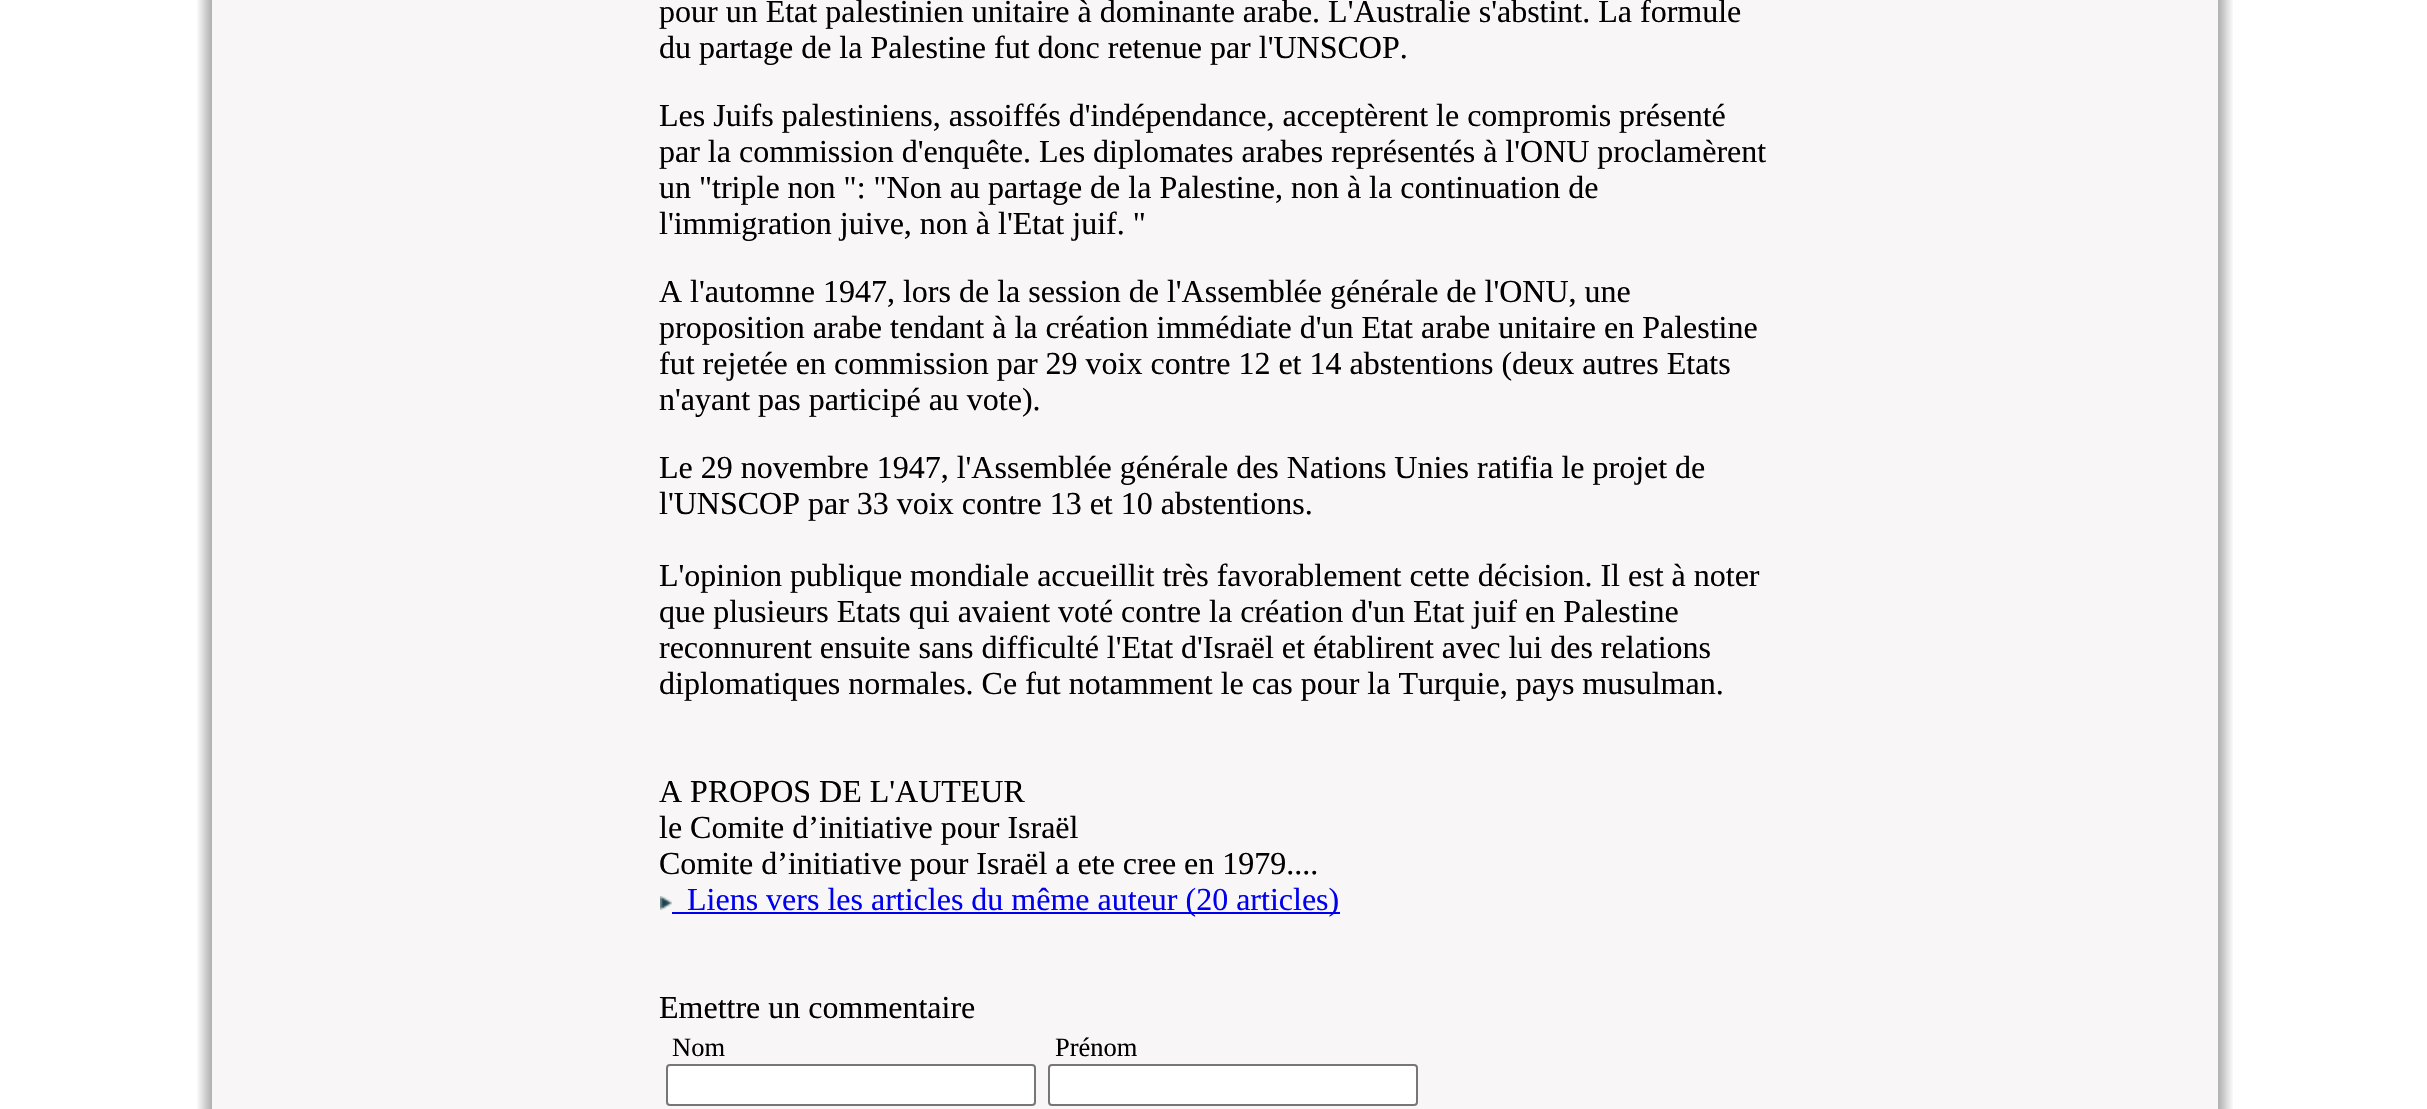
void draw(SkCanvas* canvas) {
	SkPaint fill;
	fill.setAntiAlias(true);
	auto makeFont = [&](const char* family, int weight, float size, bool italic = false) {
		SkFontStyle style(weight, SkFontStyle::kNormal_Width,
			italic ? SkFontStyle::kItalic_Slant : SkFontStyle::kUpright_Slant);
		SkFont result(fontMgr->matchFamilyStyle(family, style), size);
		result.setSubpixel(true);
		return result;
	};
	auto text = [&](const char* s, float x, float y, const SkFont& font) {
		canvas->drawString(s, x, y, font, fill);
	};
	auto box = [&](float l, float t, float r, float b) {
		canvas->drawRect(SkRect::MakeLTRB(l, t, r, b), fill);
	};
	auto picture = [&](const char* path, float l, float t, float r, float b) {
		auto image = SkImages::DeferredFromEncodedData(SkData::MakeFromFileName(path));
		canvas->drawImageRect(image, SkRect::MakeLTRB(l, t, r, b), SkSamplingOptions());
	};
	canvas->clear(0xFFFFFFFF);
	picture("image0.png", 197, 0, 212, 1109);
	picture("image1.png", 2218, 0, 2233, 1109);
	fill.setColor(0xFFF8F6F7);
	box(212, 0, 2218, 1109);
	picture("image2.png", 660, 896, 672, 910);
	fill.setColor(0xFF0000EE);
	box(672, 912, 1340, 914);
	fill.setColor(0xFFFFFFFF);
	canvas->drawRoundRect(SkRect::MakeLTRB(667, 1065, 1035, 1105), 3, 3, fill);
	fill.setStyle(SkPaint::kStroke_Style);
	fill.setStrokeWidth(2);
	fill.setColor(0xFF767676);
	canvas->drawRoundRect(SkRect::MakeLTRB(667, 1065, 1035, 1105), 3, 3, fill);
	fill.setStyle(SkPaint::kFill_Style);
	fill.setColor(0xFFFFFFFF);
	canvas->drawRoundRect(SkRect::MakeLTRB(1049, 1065, 1417, 1105), 3, 3, fill);
	fill.setStyle(SkPaint::kStroke_Style);
	fill.setColor(0xFF767676);
	canvas->drawRoundRect(SkRect::MakeLTRB(1049, 1065, 1417, 1105), 3, 3, fill);
	auto font1 = makeFont("Liberation Serif", 400, 32);
	fill.setStyle(SkPaint::kFill_Style);
	fill.setColor(0xFF000000);
	text("pour un Etat palestinien unitaire à dominante arabe. L'Australie s'abstint. La formule", 659, 22, font1);
	text("du partage de la Palestine fut donc retenue par l'UNSCOP.", 659, 58, font1);
	text("Les Juifs palestiniens, assoiffés d'indépendance, acceptèrent le compromis présenté", 659, 126, font1);
	text("par la commission d'enquête. Les diplomates arabes représentés à l'ONU proclamèrent", 659, 162, font1);
	text("un \"triple non \": \"Non au partage de la Palestine, non à la continuation de", 659, 198, font1);
	text("l'immigration juive, non à l'Etat juif. \"", 659, 234, font1);
	text("A l'automne 1947, lors de la session de l'Assemblée générale de l'ONU, une", 659, 302, font1);
	text("proposition arabe tendant à la création immédiate d'un Etat arabe unitaire en Palestine", 659, 338, font1);
	text("fut rejetée en commission par 29 voix contre 12 et 14 abstentions (deux autres Etats", 659, 374, font1);
	text("n'ayant pas participé au vote).", 659, 410, font1);
	text("Le 29 novembre 1947, l'Assemblée générale des Nations Unies ratifia le projet de", 659, 478, font1);
	text("l'UNSCOP par 33 voix contre 13 et 10 abstentions.", 659, 514, font1);
	text("L'opinion publique mondiale accueillit très favorablement cette décision. Il est à noter", 659, 586, font1);
	text("que plusieurs Etats qui avaient voté contre la création d'un Etat juif en Palestine", 659, 622, font1);
	text("reconnurent ensuite sans difficulté l'Etat d'Israël et établirent avec lui des relations", 659, 658, font1);
	text("diplomatiques normales. Ce fut notamment le cas pour la Turquie, pays musulman.", 659, 694, font1);
	text("A PROPOS DE L'AUTEUR", 659, 802, font1);
	text("le Comite d’initiative pour Israël", 659, 838, font1);
	text("Comite d’initiative pour Israël a ete cree en 1979....", 659, 874, font1);
	fill.setColor(0xFF0000EE);
	text("Liens vers les articles du même auteur (20 articles)", 687, 910, font1);
	fill.setColor(0xFF000000);
	text("Emettre un commentaire", 659, 1018, font1);
	auto font2 = makeFont("Liberation Serif", 400, 26.5f);
	text("Nom", 672, 1056, font2);
	text("Prénom", 1055, 1056, font2);
}
